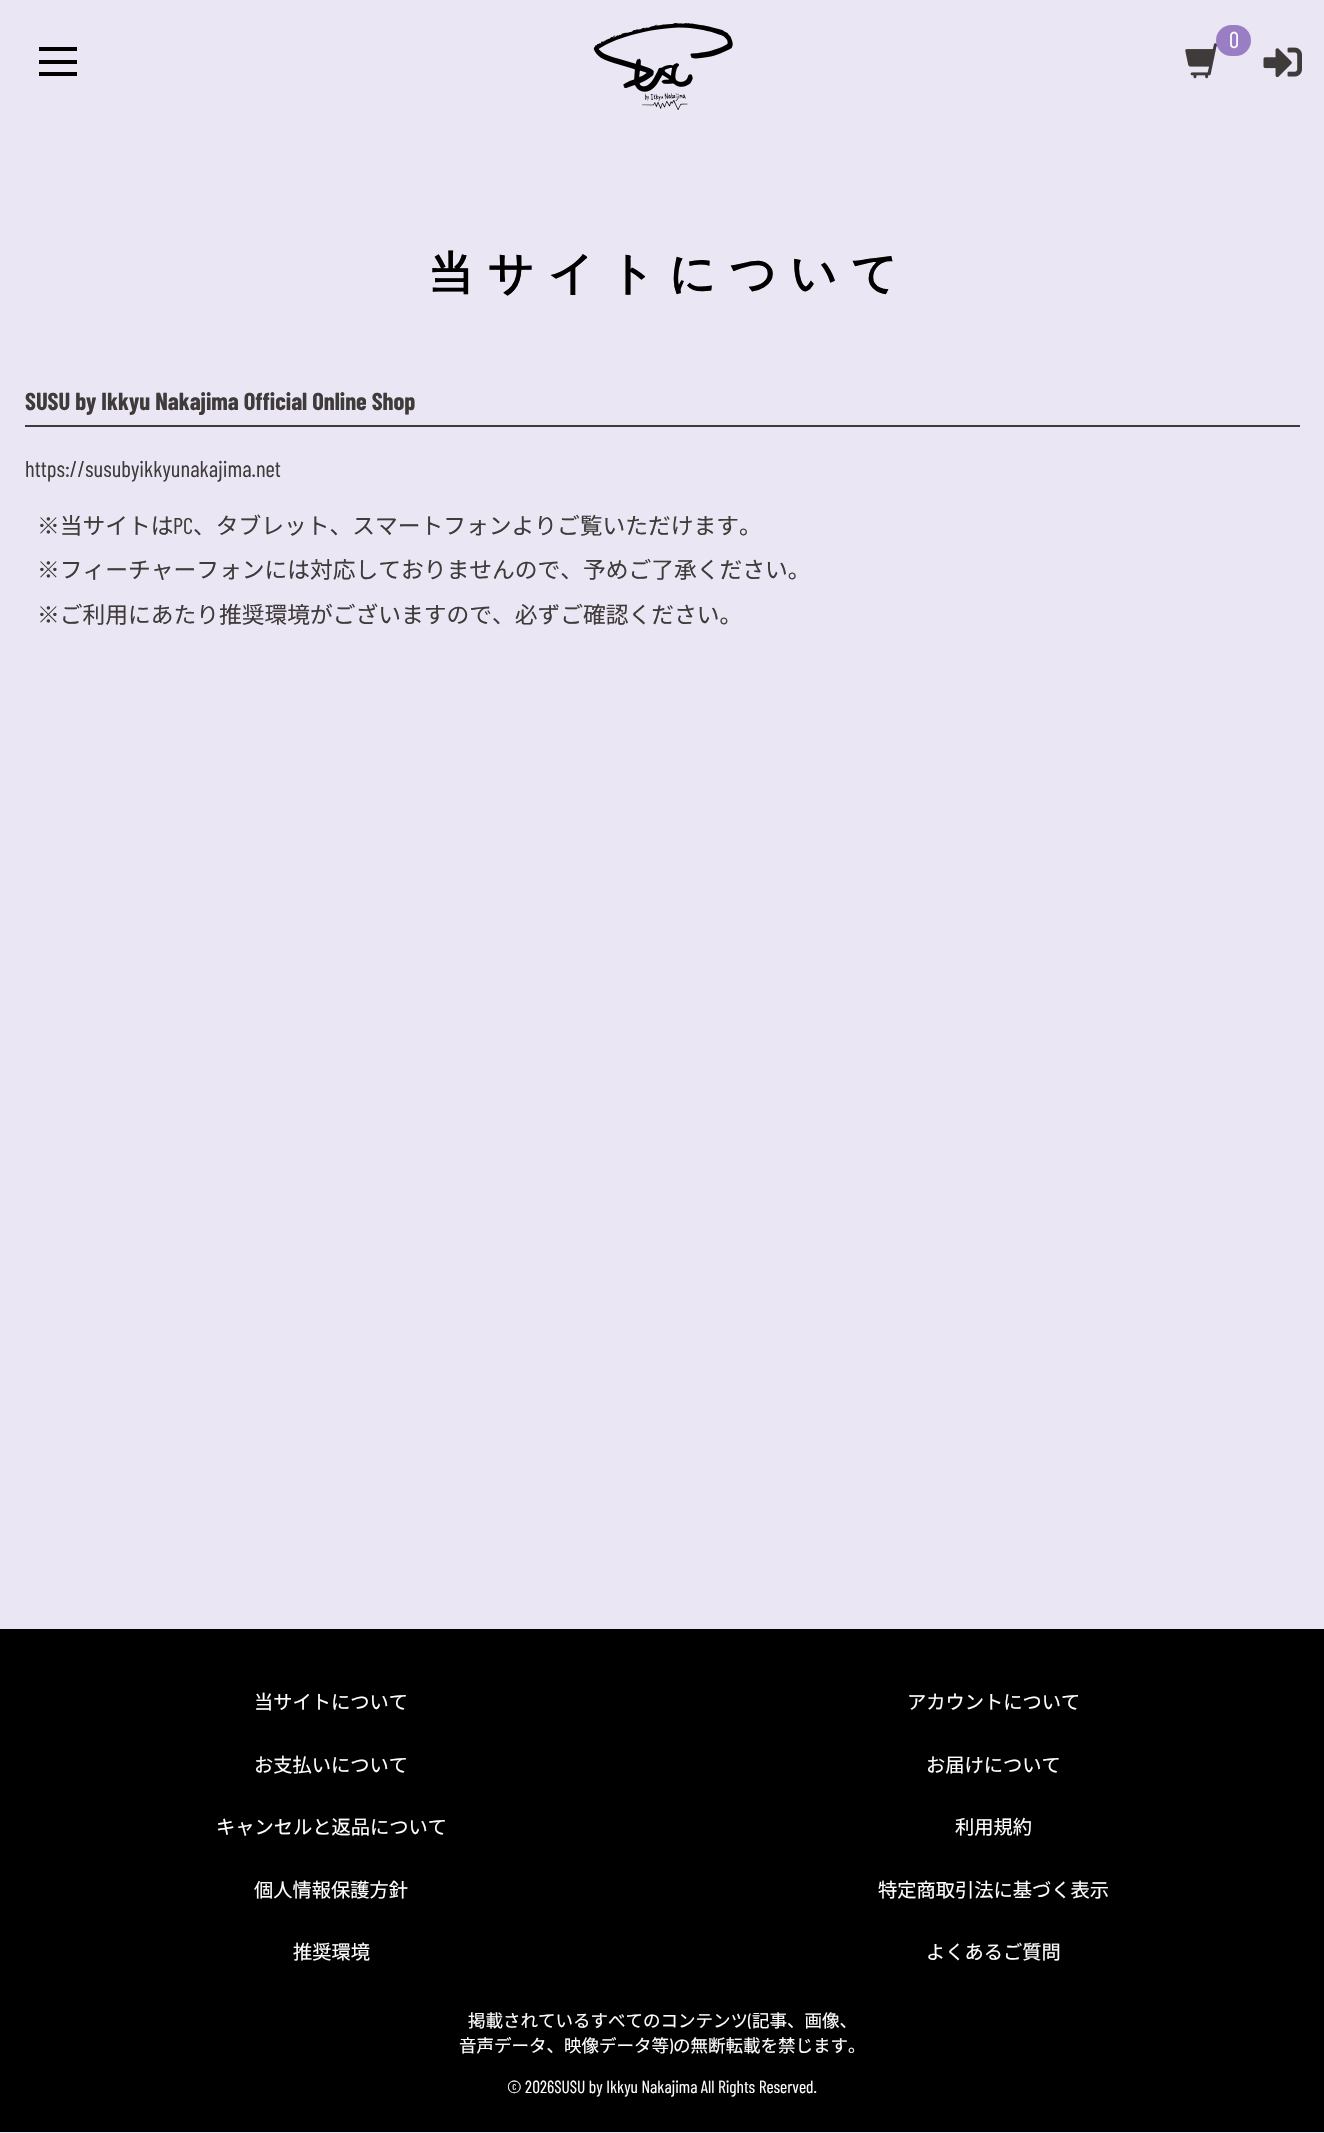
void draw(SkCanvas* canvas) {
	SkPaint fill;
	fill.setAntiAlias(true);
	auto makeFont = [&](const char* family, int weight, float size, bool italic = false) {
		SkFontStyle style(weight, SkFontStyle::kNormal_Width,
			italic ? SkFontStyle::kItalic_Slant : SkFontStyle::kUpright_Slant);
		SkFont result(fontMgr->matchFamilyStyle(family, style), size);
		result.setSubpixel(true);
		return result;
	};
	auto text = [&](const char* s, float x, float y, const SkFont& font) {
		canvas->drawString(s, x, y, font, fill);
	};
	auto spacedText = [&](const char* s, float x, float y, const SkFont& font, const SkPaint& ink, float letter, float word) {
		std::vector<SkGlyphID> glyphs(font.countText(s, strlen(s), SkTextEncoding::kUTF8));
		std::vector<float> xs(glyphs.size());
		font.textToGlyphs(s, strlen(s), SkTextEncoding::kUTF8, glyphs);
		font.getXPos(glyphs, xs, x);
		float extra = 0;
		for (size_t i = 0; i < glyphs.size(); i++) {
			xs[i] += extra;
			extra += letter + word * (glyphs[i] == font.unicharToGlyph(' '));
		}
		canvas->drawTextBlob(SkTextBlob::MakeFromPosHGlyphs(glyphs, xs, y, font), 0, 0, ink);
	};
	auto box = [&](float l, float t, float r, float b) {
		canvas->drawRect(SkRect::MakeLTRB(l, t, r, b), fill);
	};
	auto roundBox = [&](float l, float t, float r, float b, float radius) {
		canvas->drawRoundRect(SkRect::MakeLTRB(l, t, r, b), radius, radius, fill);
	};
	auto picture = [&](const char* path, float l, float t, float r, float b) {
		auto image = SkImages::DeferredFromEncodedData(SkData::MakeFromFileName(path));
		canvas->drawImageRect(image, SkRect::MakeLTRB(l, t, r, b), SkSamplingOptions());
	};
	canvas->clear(0xFFEBE6F4);
	picture("image0.png", 593, 23, 733, 110);
	picture("image1.png", 1185, 43, 1218, 79);
	fill.setColor(0xFF997EC4);
	roundBox(1216, 25, 1251, 56, 15.5f);
	picture("image2.png", 1263, 47, 1302, 78);
	fill.setColor(0xFF000000);
	box(39, 60, 77, 64);
	box(39, 47, 77, 51);
	box(39, 72, 77, 76);
	fill.setColor(0xFF3F3B3A);
	box(25, 425, 1300, 427);
	fill.setColor(0xFF000000);
	box(0, 1629, 1324, 2132);
	auto font1 = makeFont("Barlow Condensed", 400, 22.75f);
	fill.setColor(0xFFFFFFFF);
	text("0", 1229, 48, font1);
	auto font2 = makeFont("WenQuanYi Zen Hei", 700, 45.5f);
	fill.setColor(0xFF000000);
	spacedText("当サイトについて", 428, 289, font2, fill, 14, 0);
	auto font3 = makeFont("Barlow Condensed", 700, 24.5f);
	fill.setColor(0xFF3F3B3A);
	text("SUSU by Ikkyu Nakajima Official Online Shop", 25, 410, font3);
	text("https://susubyikkyunakajima.net", 25, 477, font1);
	auto font4 = makeFont("Noto Sans JP", 400, 22.75f);
	text("※当サイトは", 37, 534, font4);
	text("PC", 173, 534, font1);
	text("、タブレット、スマートフォンよりご覧いただけます。", 193, 534, font4);
	text("※フィーチャーフォンには対応しておりませんので、予めご了承ください。", 37, 578, font4);
	text("※ご利用にあたり推奨環境がございますので、必ずご確認ください。", 37, 623, font4);
	auto font5 = makeFont("Noto Sans JP", 400, 19.25f);
	fill.setColor(0xFFFFFFFF);
	text("当サイトについて", 254, 1709, font5);
	text("アカウントについて", 907, 1709, font5);
	text("お支払いについて", 254, 1772, font5);
	text("お届けについて", 926, 1772, font5);
	text("キャンセルと返品について", 216, 1834, font5);
	text("利用規約", 955, 1834, font5);
	text("個人情報保護方針", 254, 1897, font5);
	text("特定商取引法に基づく表示", 878, 1897, font5);
	text("推奨環境", 293, 1959, font5);
	text("よくあるご質問", 926, 1959, font5);
	auto font6 = makeFont("Noto Sans JP", 400, 17.5f);
	text("掲載されているすべてのコンテンツ 記事、画像、", 468, 2027, font6);
	auto font7 = makeFont("Barlow Condensed", 400, 17.5f);
	text("(", 748, 2027, font7);
	text("音声データ、映像データ等 の無断転載を禁じます。", 459, 2052, font6);
	text(")", 669, 2052, font7);
	text("© 2026SUSU by Ikkyu Nakajima All Rights Reserved.", 507, 2093, font7);
}
